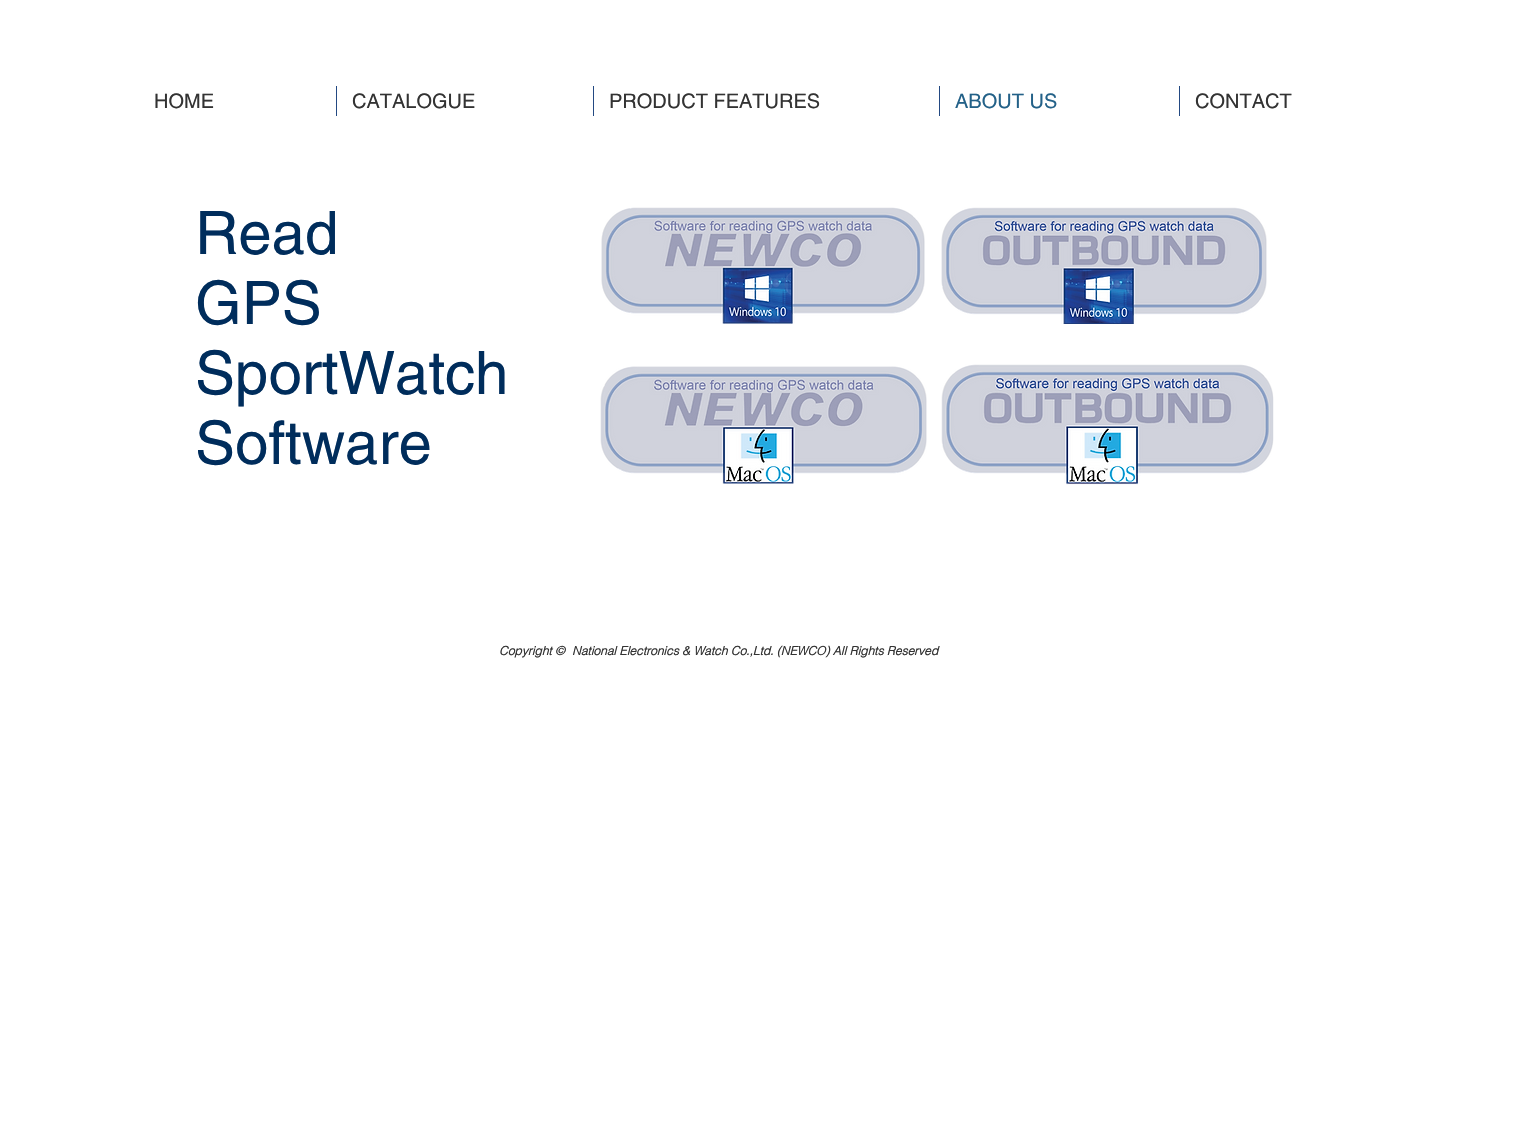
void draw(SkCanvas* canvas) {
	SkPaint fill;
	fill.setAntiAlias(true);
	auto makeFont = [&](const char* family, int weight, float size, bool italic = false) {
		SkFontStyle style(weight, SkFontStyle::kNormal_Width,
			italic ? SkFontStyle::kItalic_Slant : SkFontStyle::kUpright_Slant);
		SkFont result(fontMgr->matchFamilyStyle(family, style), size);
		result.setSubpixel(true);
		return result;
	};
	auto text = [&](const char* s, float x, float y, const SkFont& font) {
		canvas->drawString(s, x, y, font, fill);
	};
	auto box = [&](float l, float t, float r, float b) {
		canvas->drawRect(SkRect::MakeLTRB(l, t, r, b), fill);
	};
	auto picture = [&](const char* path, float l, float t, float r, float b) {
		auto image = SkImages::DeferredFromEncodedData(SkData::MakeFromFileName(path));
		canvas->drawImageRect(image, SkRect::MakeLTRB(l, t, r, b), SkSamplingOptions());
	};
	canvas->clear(0xFFFFFFFF);
	fill.setColor(0xFF234982);
	box(336, 86, 337, 116);
	box(593, 86, 594, 116);
	box(939, 86, 940, 116);
	box(1179, 86, 1180, 116);
	picture("image0.png", 601, 207, 925, 324);
	picture("image1.png", 941, 207, 1267, 324);
	picture("image2.png", 600, 366, 927, 484);
	picture("image3.png", 941, 364, 1274, 485);
	auto font1 = makeFont("helvetica", 400, 20);
	fill.setColor(0xFF333333);
	text("HOME", 154, 108, font1);
	text("CATALOGUE", 352, 108, font1);
	text("PRODUCT FEATURES", 609, 108, font1);
	fill.setColor(0xFF236188);
	text("ABOUT US", 955, 108, font1);
	fill.setColor(0xFF333333);
	text("CONTACT", 1195, 108, font1);
	auto font2 = makeFont("helvetica", 400, 60);
	fill.setColor(0xFF002D5C);
	text("Read", 195, 254, font2);
	text("GPS", 195, 324, font2);
	text("SportWatch", 195, 394, font2);
	text("Software", 195, 464, font2);
	auto font3 = makeFont("helvetica", 700, 12, true);
	fill.setColor(0xFF333333);
	text("Copyright ©", 499, 655, font3);
	text("National Electronics & Watch Co.,Ltd. (NEWCO) All Rights Reserved", 572, 655, font3);
}
